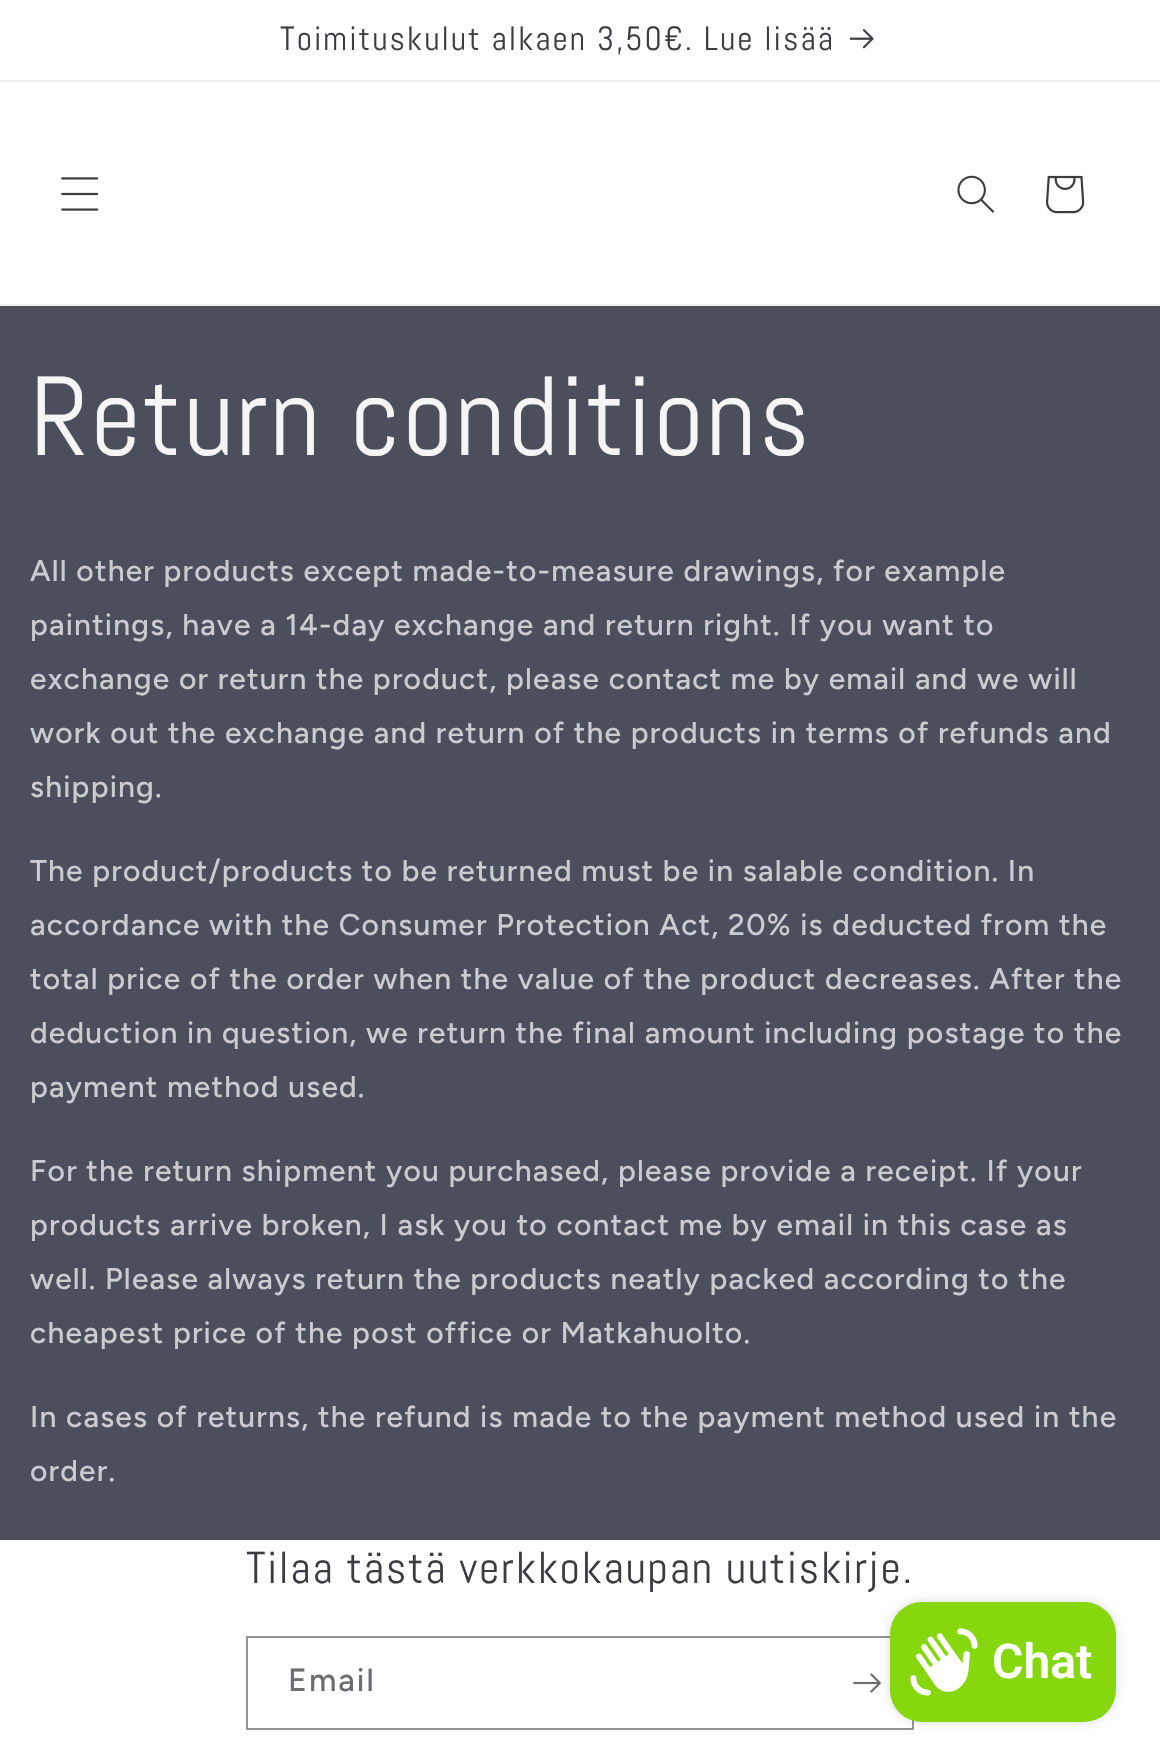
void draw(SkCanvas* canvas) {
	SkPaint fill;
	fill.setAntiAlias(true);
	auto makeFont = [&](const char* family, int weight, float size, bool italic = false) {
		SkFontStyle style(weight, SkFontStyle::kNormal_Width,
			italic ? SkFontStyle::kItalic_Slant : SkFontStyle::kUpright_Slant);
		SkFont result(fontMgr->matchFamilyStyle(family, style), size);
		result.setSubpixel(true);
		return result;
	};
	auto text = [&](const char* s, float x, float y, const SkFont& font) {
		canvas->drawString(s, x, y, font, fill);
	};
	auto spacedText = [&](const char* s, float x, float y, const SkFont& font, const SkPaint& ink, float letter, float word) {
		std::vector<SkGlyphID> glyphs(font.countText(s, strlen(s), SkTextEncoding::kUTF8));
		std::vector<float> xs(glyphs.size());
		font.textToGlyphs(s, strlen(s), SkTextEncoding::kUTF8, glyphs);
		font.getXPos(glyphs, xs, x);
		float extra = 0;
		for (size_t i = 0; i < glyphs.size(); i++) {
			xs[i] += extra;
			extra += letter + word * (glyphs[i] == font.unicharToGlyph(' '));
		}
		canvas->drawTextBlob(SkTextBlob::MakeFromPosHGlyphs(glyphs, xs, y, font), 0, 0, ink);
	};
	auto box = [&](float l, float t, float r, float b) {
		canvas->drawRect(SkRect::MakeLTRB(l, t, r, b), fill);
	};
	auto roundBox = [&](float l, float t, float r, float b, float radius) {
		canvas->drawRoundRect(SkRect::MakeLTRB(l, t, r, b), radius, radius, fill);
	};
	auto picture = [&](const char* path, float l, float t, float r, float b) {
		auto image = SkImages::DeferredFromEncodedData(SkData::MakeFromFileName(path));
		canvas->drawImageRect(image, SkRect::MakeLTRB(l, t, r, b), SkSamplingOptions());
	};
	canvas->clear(0xFF4A4F5B);
	fill.setColor(0xFFFFFFFF);
	box(0, 0, 1160, 80);
	fill.setColor(0xFFEFEFF0);
	box(0, 80, 1160, 82);
	picture("image0.png", 850, 29, 874, 49);
	fill.setColor(0xFFFFFFFF);
	box(0, 82, 1160, 304);
	fill.setColor(0xFFEFEFF0);
	box(0, 304, 1160, 306);
	picture("image1.png", 61, 177, 99, 211);
	picture("image2.png", 957, 175, 994, 213);
	picture("image3.png", 1046, 175, 1085, 214);
	fill.setColor(0xFFFFFFFF);
	box(0, 1540, 1160, 1763);
	fill.setStyle(SkPaint::kStroke_Style);
	fill.setStrokeWidth(2);
	fill.setColor(0xFF949497);
	canvas->drawRect(SkRect::MakeLTRB(247, 1637, 913, 1729), fill);
	picture("image4.png", 853, 1673, 881, 1693);
	fill.setStyle(SkPaint::kFill_Style);
	fill.setColor(0x26000000);
	fill.setMaskFilter(SkMaskFilter::MakeBlur(kNormal_SkBlurStyle, 5));
	canvas->drawRoundRect(SkRect::MakeLTRB(890, 1602, 1116, 1722), 32, 32, fill);
	fill.setMaskFilter(nullptr);
	fill.setColor(0xFF86D70D);
	roundBox(890, 1602, 1116, 1722, 32);
	picture("image5.png", 910, 1628, 978, 1696);
	auto font1 = makeFont("Abel", 400, 33.6f);
	fill.setColor(0xFF3C3C41);
	spacedText("Toimituskulut alkaen 3,50€. Lue lisää", 280, 50, font1, fill, 2, 0);
	auto font2 = makeFont("Abel", 400, 112);
	fill.setColor(0xFFF5F5F5);
	spacedText("Return conditions", 30, 455, font2, fill, 1.7f, 0);
	auto font3 = makeFont("Figtree", 500, 30);
	fill.setColor(0xFFCACCCF);
	spacedText("All other products except made-to-measure drawings, for example", 30, 581, font3, fill, 1.2f, 0);
	spacedText("paintings, have a 14-day exchange and return right. If you want to", 30, 635, font3, fill, 1.2f, 0);
	spacedText("exchange or return the product, please contact me by email and we will", 30, 689, font3, fill, 1.2f, 0);
	spacedText("work out the exchange and return of the products in terms of refunds and", 30, 743, font3, fill, 1.2f, 0);
	spacedText("shipping.", 30, 797, font3, fill, 1.2f, 0);
	spacedText("The product/products to be returned must be in salable condition. In", 30, 881, font3, fill, 1.2f, 0);
	spacedText("accordance with the Consumer Protection Act, 20% is deducted from the", 30, 935, font3, fill, 1.2f, 0);
	spacedText("total price of the order when the value of the product decreases. After the", 30, 989, font3, fill, 1.2f, 0);
	spacedText("deduction in question, we return the final amount including postage to the", 30, 1043, font3, fill, 1.2f, 0);
	spacedText("payment method used.", 30, 1097, font3, fill, 1.2f, 0);
	spacedText("For the return shipment you purchased, please provide a receipt. If your", 30, 1181, font3, fill, 1.2f, 0);
	spacedText("products arrive broken, I ask you to contact me by email in this case as", 30, 1235, font3, fill, 1.2f, 0);
	spacedText("well. Please always return the products neatly packed according to the", 30, 1289, font3, fill, 1.2f, 0);
	spacedText("cheapest price of the post office or Matkahuolto.", 30, 1343, font3, fill, 1.2f, 0);
	spacedText("In cases of returns, the refund is made to the payment method used in the", 30, 1427, font3, fill, 1.2f, 0);
	spacedText("order.", 30, 1481, font3, fill, 1.2f, 0);
	auto font4 = makeFont("Abel", 400, 44.75f);
	fill.setColor(0xFF3C3C41);
	spacedText("Tilaa tästä verkkokaupan uutiskirje.", 246, 1583, font4, fill, 1.7f, 0);
	auto font5 = makeFont("Figtree", 500, 32);
	fill.setColor(0xFF6D6D71);
	spacedText("Email", 288, 1691, font5, fill, 2, 0);
	auto font6 = makeFont("Roboto", 600, 48);
	fill.setColor(0xFFFFFFFF);
	text("Chat", 992, 1678, font6);
}
